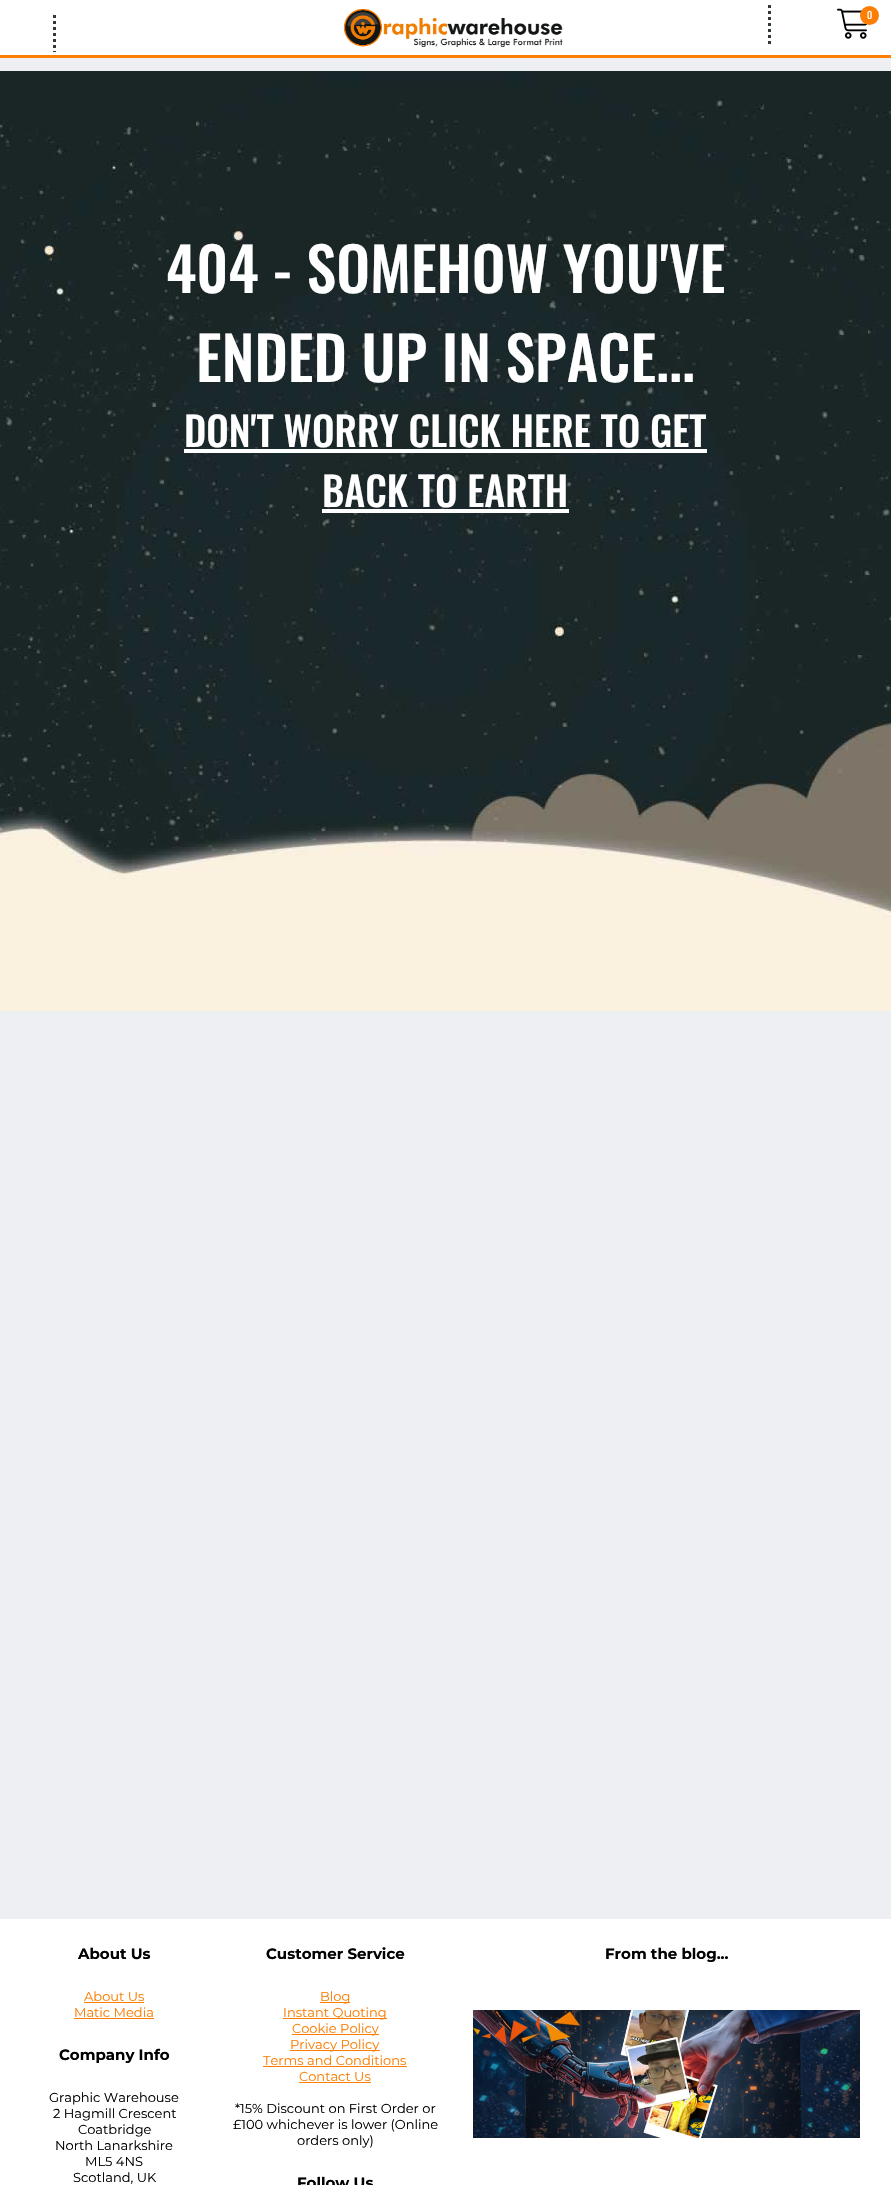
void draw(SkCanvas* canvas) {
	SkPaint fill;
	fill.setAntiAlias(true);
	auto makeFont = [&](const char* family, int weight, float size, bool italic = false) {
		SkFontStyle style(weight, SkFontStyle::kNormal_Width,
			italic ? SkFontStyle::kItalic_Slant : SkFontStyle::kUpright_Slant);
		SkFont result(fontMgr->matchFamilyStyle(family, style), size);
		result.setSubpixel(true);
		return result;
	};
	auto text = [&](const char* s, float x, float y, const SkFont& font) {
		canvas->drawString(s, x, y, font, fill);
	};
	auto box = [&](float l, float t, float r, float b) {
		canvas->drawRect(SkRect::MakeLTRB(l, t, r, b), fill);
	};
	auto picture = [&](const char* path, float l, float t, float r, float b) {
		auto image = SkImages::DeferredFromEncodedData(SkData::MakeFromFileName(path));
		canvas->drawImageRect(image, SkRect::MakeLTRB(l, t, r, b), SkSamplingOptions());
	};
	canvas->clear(0xFFEEEFF2);
	fill.setColor(0xFFFFFFFF);
	box(0, 0, 891, 55);
	fill.setColor(0xFFFC7E04);
	box(0, 55, 891, 58);
	picture("image0.png", 343, 9, 563, 47);
	fill.setStyle(SkPaint::kStroke_Style);
	fill.setStrokeWidth(3);
	fill.setColor(0xFF333A3A);
	fill.setPathEffect(SkDashPathEffect::Make({{3, 3}}, 0));
	canvas->drawPath(SkPathBuilder().moveTo(54.5f, 15).lineTo(54.5f, 52).detach(), fill);
	fill.setPathEffect(nullptr);
	fill.setPathEffect(SkDashPathEffect::Make({{3, 3}}, 0));
	canvas->drawPath(SkPathBuilder().moveTo(769.5f, 5).lineTo(769.5f, 47).detach(), fill);
	fill.setPathEffect(nullptr);
	picture("image1.png", 837, 8, 868, 39);
	fill.setStyle(SkPaint::kFill_Style);
	fill.setColor(0xFFFC7E04);
	canvas->drawCircle(869.5f, 15.5f, 8, fill);
	fill.setStyle(SkPaint::kStroke_Style);
	canvas->drawCircle(869.5f, 15.5f, 8, fill);
	picture("image2.png", 0, 71, 891, 1011);
	fill.setStyle(SkPaint::kFill_Style);
	fill.setColor(0xFFFFFFFF);
	box(184, 449, 707, 453);
	box(322, 509, 569, 513);
	box(0, 1919, 891, 2185);
	fill.setColor(0xFFFC7E04);
	box(84, 2002, 144, 2003);
	box(74, 2018, 154, 2019);
	box(320, 2002, 350, 2003);
	box(283, 2018, 387, 2019);
	box(292, 2034, 379, 2035);
	box(290, 2050, 380, 2051);
	box(263, 2066, 407, 2067);
	box(299, 2082, 371, 2083);
	picture("image3.png", 473, 2010, 860, 2138);
	auto font1 = makeFont("Oswald", 400, 10);
	fill.setColor(0xFFFFFFFF);
	text("0", 867, 19, font1);
	auto font2 = makeFont("Oswald", 500, 60);
	text("404 - SOMEHOW YOU'VE", 166, 293, font2);
	text("ENDED UP IN SPACE...", 196, 382, font2);
	auto font3 = makeFont("Oswald", 500, 40);
	text("DON'T WORRY CLICK HERE TO GET", 184, 447, font3);
	text("BACK TO EARTH", 322, 507, font3);
	auto font4 = makeFont("Montserrat", 700, 15);
	fill.setColor(0xFF000000);
	text("About Us", 78, 1959, font4);
	auto font5 = makeFont("Montserrat", 400, 13);
	fill.setColor(0xFFFC7E04);
	text("About Us", 84, 2001, font5);
	text("Matic Media", 74, 2017, font5);
	fill.setColor(0xFF000000);
	text("Company Info", 59, 2060, font4);
	text("Graphic Warehouse", 49, 2102, font5);
	text("2 Hagmill Crescent", 53, 2118, font5);
	text("Coatbridge", 78, 2134, font5);
	text("North Lanarkshire", 55, 2150, font5);
	text("ML5 4NS", 85, 2166, font5);
	text("Scotland, UK", 73, 2182, font5);
	text("Customer Service", 266, 1959, font4);
	fill.setColor(0xFFFC7E04);
	text("Blog", 320, 2001, font5);
	text("Instant Quoting", 283, 2017, font5);
	text("Cookie Policy", 292, 2033, font5);
	text("Privacy Policy", 290, 2049, font5);
	text("Terms and Conditions", 263, 2065, font5);
	text("Contact Us", 299, 2081, font5);
	fill.setColor(0xFF000000);
	text("*15% Discount on First Order or", 235, 2113, font5);
	text("£100 whichever is lower (Online", 233, 2129, font5);
	text("orders only)", 297, 2145, font5);
	text("Follow Us", 297, 2188, font4);
	text("From the blog...", 605, 1959, font4);
}
